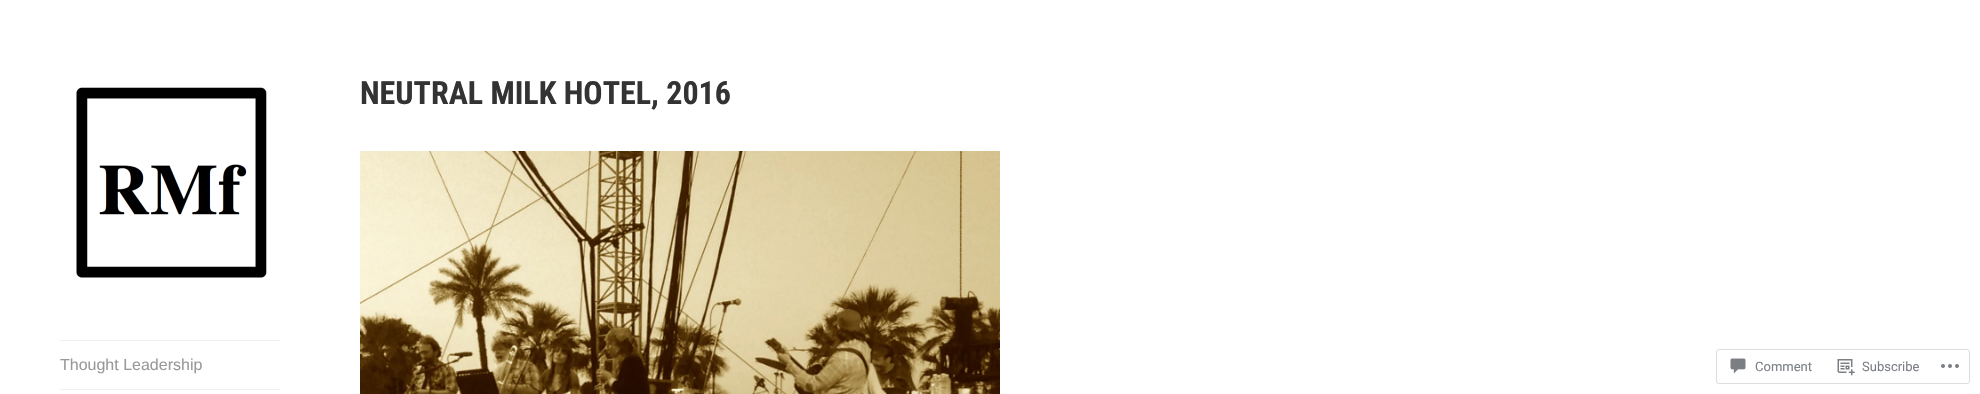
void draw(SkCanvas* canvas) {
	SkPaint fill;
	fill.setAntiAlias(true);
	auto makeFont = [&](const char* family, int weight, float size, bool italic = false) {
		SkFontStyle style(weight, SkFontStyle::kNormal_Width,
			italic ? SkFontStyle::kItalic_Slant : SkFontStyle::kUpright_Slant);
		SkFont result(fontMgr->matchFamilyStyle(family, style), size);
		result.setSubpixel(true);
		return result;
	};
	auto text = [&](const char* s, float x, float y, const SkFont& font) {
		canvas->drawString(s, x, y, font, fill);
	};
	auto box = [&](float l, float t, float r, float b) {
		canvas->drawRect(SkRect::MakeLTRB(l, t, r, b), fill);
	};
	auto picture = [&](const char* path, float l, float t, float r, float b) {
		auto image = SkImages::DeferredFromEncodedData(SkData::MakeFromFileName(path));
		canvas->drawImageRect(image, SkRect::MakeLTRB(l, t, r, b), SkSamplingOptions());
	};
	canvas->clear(0xFFFFFFFF);
	picture("image0.png", 360, 151, 1000, 394);
	picture("image1.png", 76, 87, 267, 278);
	fill.setColor(0xFFF0F0F0);
	box(60, 340, 280, 341);
	box(60, 389, 280, 390);
	fill.setStyle(SkPaint::kStroke_Style);
	fill.setStrokeWidth(1);
	fill.setColor(0xFFDDDDDF);
	canvas->drawRoundRect(SkRect::MakeLTRB(1716.5f, 349.5f, 1969.5f, 383.5f), 2.5f, 2.5f, fill);
	picture("image2.png", 1730, 358, 1746, 374);
	picture("image3.png", 1837, 359, 1855, 376);
	picture("image4.png", 1941, 364, 1959, 368);
	auto font1 = makeFont("Roboto Condensed", 700, 32);
	fill.setStyle(SkPaint::kFill_Style);
	fill.setColor(0xFF333333);
	text("NEUTRAL MILK HOTEL, 2016", 360, 104, font1);
	auto font2 = makeFont("Arimo", 400, 16);
	fill.setColor(0xFF999999);
	text("Thought Leadership", 60, 370, font2);
	auto font3 = makeFont("Roboto", 400, 13);
	fill.setColor(0xFF7B7F85);
	text("Comment", 1755, 371, font3);
	text("Subscribe", 1862, 371, font3);
}
